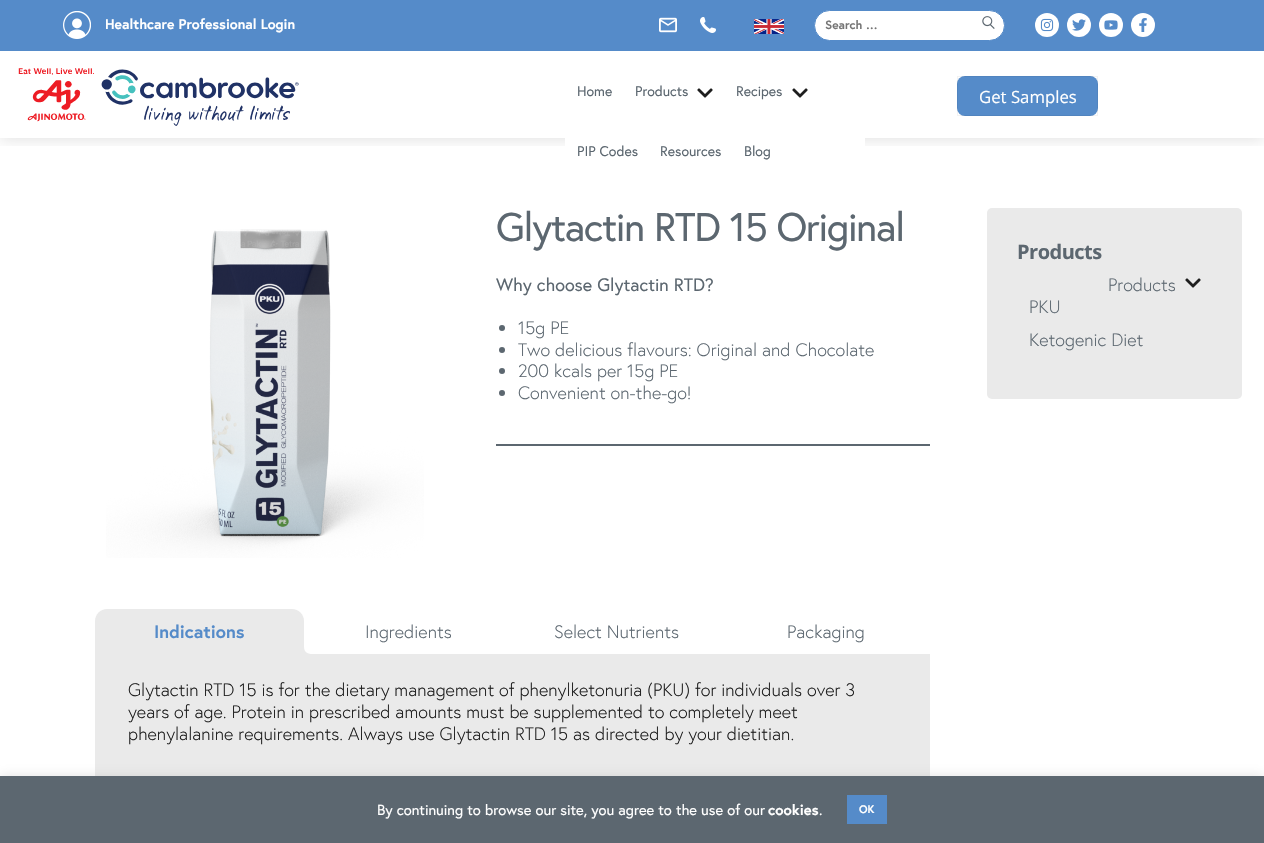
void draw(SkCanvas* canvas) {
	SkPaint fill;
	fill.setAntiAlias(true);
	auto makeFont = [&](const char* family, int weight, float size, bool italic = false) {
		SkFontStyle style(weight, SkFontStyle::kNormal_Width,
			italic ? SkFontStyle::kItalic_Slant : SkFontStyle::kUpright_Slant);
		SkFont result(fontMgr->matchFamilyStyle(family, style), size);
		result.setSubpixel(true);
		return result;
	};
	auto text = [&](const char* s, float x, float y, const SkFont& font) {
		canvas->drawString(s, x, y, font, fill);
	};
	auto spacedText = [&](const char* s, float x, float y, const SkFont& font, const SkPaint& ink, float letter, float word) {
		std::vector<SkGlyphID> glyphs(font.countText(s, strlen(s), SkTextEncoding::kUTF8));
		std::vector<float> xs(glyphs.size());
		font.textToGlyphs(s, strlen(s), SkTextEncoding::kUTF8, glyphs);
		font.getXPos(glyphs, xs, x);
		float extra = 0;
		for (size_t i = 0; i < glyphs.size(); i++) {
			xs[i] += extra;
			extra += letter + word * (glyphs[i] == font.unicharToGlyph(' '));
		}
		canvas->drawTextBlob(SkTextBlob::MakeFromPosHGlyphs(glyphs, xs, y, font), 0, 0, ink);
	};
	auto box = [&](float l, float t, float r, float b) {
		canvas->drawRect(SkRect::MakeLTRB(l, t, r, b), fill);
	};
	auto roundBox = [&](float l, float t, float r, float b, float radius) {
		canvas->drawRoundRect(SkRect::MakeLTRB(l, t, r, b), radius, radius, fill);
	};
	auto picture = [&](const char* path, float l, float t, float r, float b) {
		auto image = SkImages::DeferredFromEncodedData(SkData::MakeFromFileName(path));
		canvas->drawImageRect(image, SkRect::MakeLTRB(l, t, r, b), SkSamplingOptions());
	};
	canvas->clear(0xFFFFFFFF);
	canvas->save();
	canvas->clipRect(SkRect::MakeLTRB(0, 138, 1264, 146));
	fill.setColor(0x1F000000);
	fill.setMaskFilter(SkMaskFilter::MakeBlur(kNormal_SkBlurStyle, 7.5f));
	canvas->drawRect(SkRect::MakeLTRB(0, 1, 1264, 139), fill);
	fill.setMaskFilter(nullptr);
	canvas->restore();
	fill.setColor(0xFF558BC9);
	box(0, 0, 1264, 51);
	picture("image0.png", 63, 11, 91, 39);
	picture("image1.png", 659, 17, 677, 33);
	picture("image2.png", 700, 17, 716, 33);
	picture("image3.png", 754, 19, 784, 34);
	fill.setColor(0xFFFFFFFF);
	canvas->drawRoundRect(SkRect::MakeLTRB(814.5f, 10.5f, 1004.5f, 40.5f), 15, 15, fill);
	fill.setStyle(SkPaint::kStroke_Style);
	fill.setStrokeWidth(1);
	fill.setColor(0xFF558BC9);
	canvas->drawRoundRect(SkRect::MakeLTRB(814.5f, 10.5f, 1004.5f, 40.5f), 15, 15, fill);
	picture("image4.png", 982, 16, 995, 29);
	fill.setStyle(SkPaint::kFill_Style);
	fill.setColor(0xFFFFFFFF);
	canvas->drawCircle(1047, 25, 12, fill);
	picture("image5.png", 1040, 18, 1054, 32);
	canvas->drawCircle(1079, 25, 12, fill);
	picture("image6.png", 1072, 19, 1086, 31);
	canvas->drawCircle(1111, 25, 12, fill);
	picture("image7.png", 1104, 20, 1118, 30);
	canvas->drawCircle(1143, 25, 12, fill);
	picture("image8.png", 1139, 18, 1147, 32);
	picture("image9.png", 18, 68, 299, 126);
	box(565, 138, 865, 149);
	picture("image10.png", 697, 88, 713, 98);
	picture("image10.png", 792, 88, 808, 98);
	fill.setColor(0xFF558BC9);
	roundBox(957, 76, 1098, 116, 8);
	fill.setStyle(SkPaint::kStroke_Style);
	fill.setColor(0x0D000000);
	canvas->drawRect(SkRect::MakeLTRB(957.5f, 76.5f, 1097.5f, 115.5f), fill);
	picture("image11.png", 106, 229, 424, 558);
	fill.setStyle(SkPaint::kFill_Style);
	fill.setColor(0xFF5C6770);
	canvas->drawCircle(502, 328, 3, fill);
	canvas->drawCircle(502, 350, 3, fill);
	canvas->drawCircle(502, 371, 3, fill);
	canvas->drawCircle(502, 393, 3, fill);
	box(496, 444, 930, 446);
	fill.setColor(0xFFEAEAEA);
	canvas->drawPath(SkPathBuilder().moveTo(107, 609).lineTo(292, 609).cubicTo(298.5f, 609, 304, 614.5f, 304, 621).lineTo(304, 654).lineTo(95, 654).lineTo(95, 621).cubicTo(95, 614.5f, 100.5f, 609, 107, 609).close().detach(), fill);
	box(95, 654, 930, 776);
	canvas->drawPath(SkPathBuilder(SkPathFillType::kEvenOdd).moveTo(299, 639).lineTo(319, 639).lineTo(319, 659).lineTo(311, 659).cubicTo(304.5f, 659, 299, 653.5f, 299, 647).close().moveTo(304, 639).lineTo(319, 639).lineTo(319, 654).cubicTo(313.5f, 654, 304, 655.5f, 304, 647).close().detach(), fill);
	roundBox(987, 208, 1242, 399, 5);
	picture("image12.png", 1185, 278, 1201, 288);
	fill.setColor(0x4DACABAB);
	fill.setMaskFilter(SkMaskFilter::MakeBlur(kNormal_SkBlurStyle, 5));
	canvas->drawRect(SkRect::MakeLTRB(0, 775, 1264, 842), fill);
	fill.setMaskFilter(nullptr);
	fill.setColor(0xFF5C6770);
	box(0, 776, 1264, 843);
	fill.setColor(0xFF558BC9);
	box(847, 795, 887, 824);
	auto font1 = makeFont("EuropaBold", 700, 14);
	fill.setColor(0xFFFFFFFF);
	text("Healthcare Professional Login", 105, 29, font1);
	auto font2 = makeFont("EuropaBold", 700, 12);
	fill.setColor(0xFF757575);
	text("Search …", 825, 29, font2);
	auto font3 = makeFont("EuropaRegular", 400, 14);
	fill.setColor(0xFF5C6770);
	text("Home", 577, 96, font3);
	text("Products", 635, 96, font3);
	text("Recipes", 736, 96, font3);
	text("PIP Codes", 577, 156, font3);
	text("Resources", 660, 156, font3);
	text("Blog", 744, 156, font3);
	auto font4 = makeFont("Open Sans", 400, 16.75f);
	fill.setColor(0xFFFFFFFF);
	text("Get Samples", 979, 103, font4);
	auto font5 = makeFont("EuropaRegular", 400, 40);
	fill.setColor(0xFF5C6770);
	spacedText("Glytactin RTD 15 Original", 496, 241, font5, fill, -1.2f, 0);
	auto font6 = makeFont("EuropaRegular", 400, 18);
	text("Why choose Glytactin RTD?", 496, 291, font6);
	auto font7 = makeFont("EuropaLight", 300, 18);
	text("15g PE", 518, 334, font7);
	text("Two delicious flavours: Original and Chocolate", 518, 356, font7);
	text("200 kcals per 15g PE", 518, 377, font7);
	text("Convenient on-the-go!", 518, 399, font7);
	auto font8 = makeFont("EuropaBold", 700, 18);
	fill.setColor(0xFF558BC9);
	text("Indications", 154, 638, font8);
	fill.setColor(0xFF5C6770);
	text("Ingredients", 365, 638, font7);
	text("Select Nutrients", 554, 638, font7);
	text("Packaging", 787, 638, font7);
	fill.setColor(0xFF1E1E1E);
	text("Glytactin RTD 15 is for the dietary management of phenylketonuria (PKU) for individuals over 3", 128, 696, font7);
	text("years of age. Protein in prescribed amounts must be supplemented to completely meet", 128, 718, font7);
	text("phenylalanine requirements. Always use Glytactin RTD 15 as directed by your dietitian.", 128, 740, font7);
	auto font9 = makeFont("Open Sans", 700, 20);
	fill.setColor(0xFF5C6770);
	spacedText("Products", 1017, 259, font9, fill, -0.5f, 0);
	text("Products", 1108, 291, font7);
	text("PKU", 1029, 313, font7);
	text("Ketogenic Diet", 1029, 346, font7);
	auto font10 = makeFont("EuropaRegular", 400, 14.7f);
	fill.setColor(0xFFFFFFFF);
	text("By continuing to browse our site, you agree to the use of our", 377, 815, font10);
	auto font11 = makeFont("EuropaBold", 700, 14.7f);
	text("cookies", 768, 815, font11);
	text(".", 819, 815, font10);
	auto font12 = makeFont("EuropaBold", 700, 11);
	text("OK", 859, 813, font12);
}
